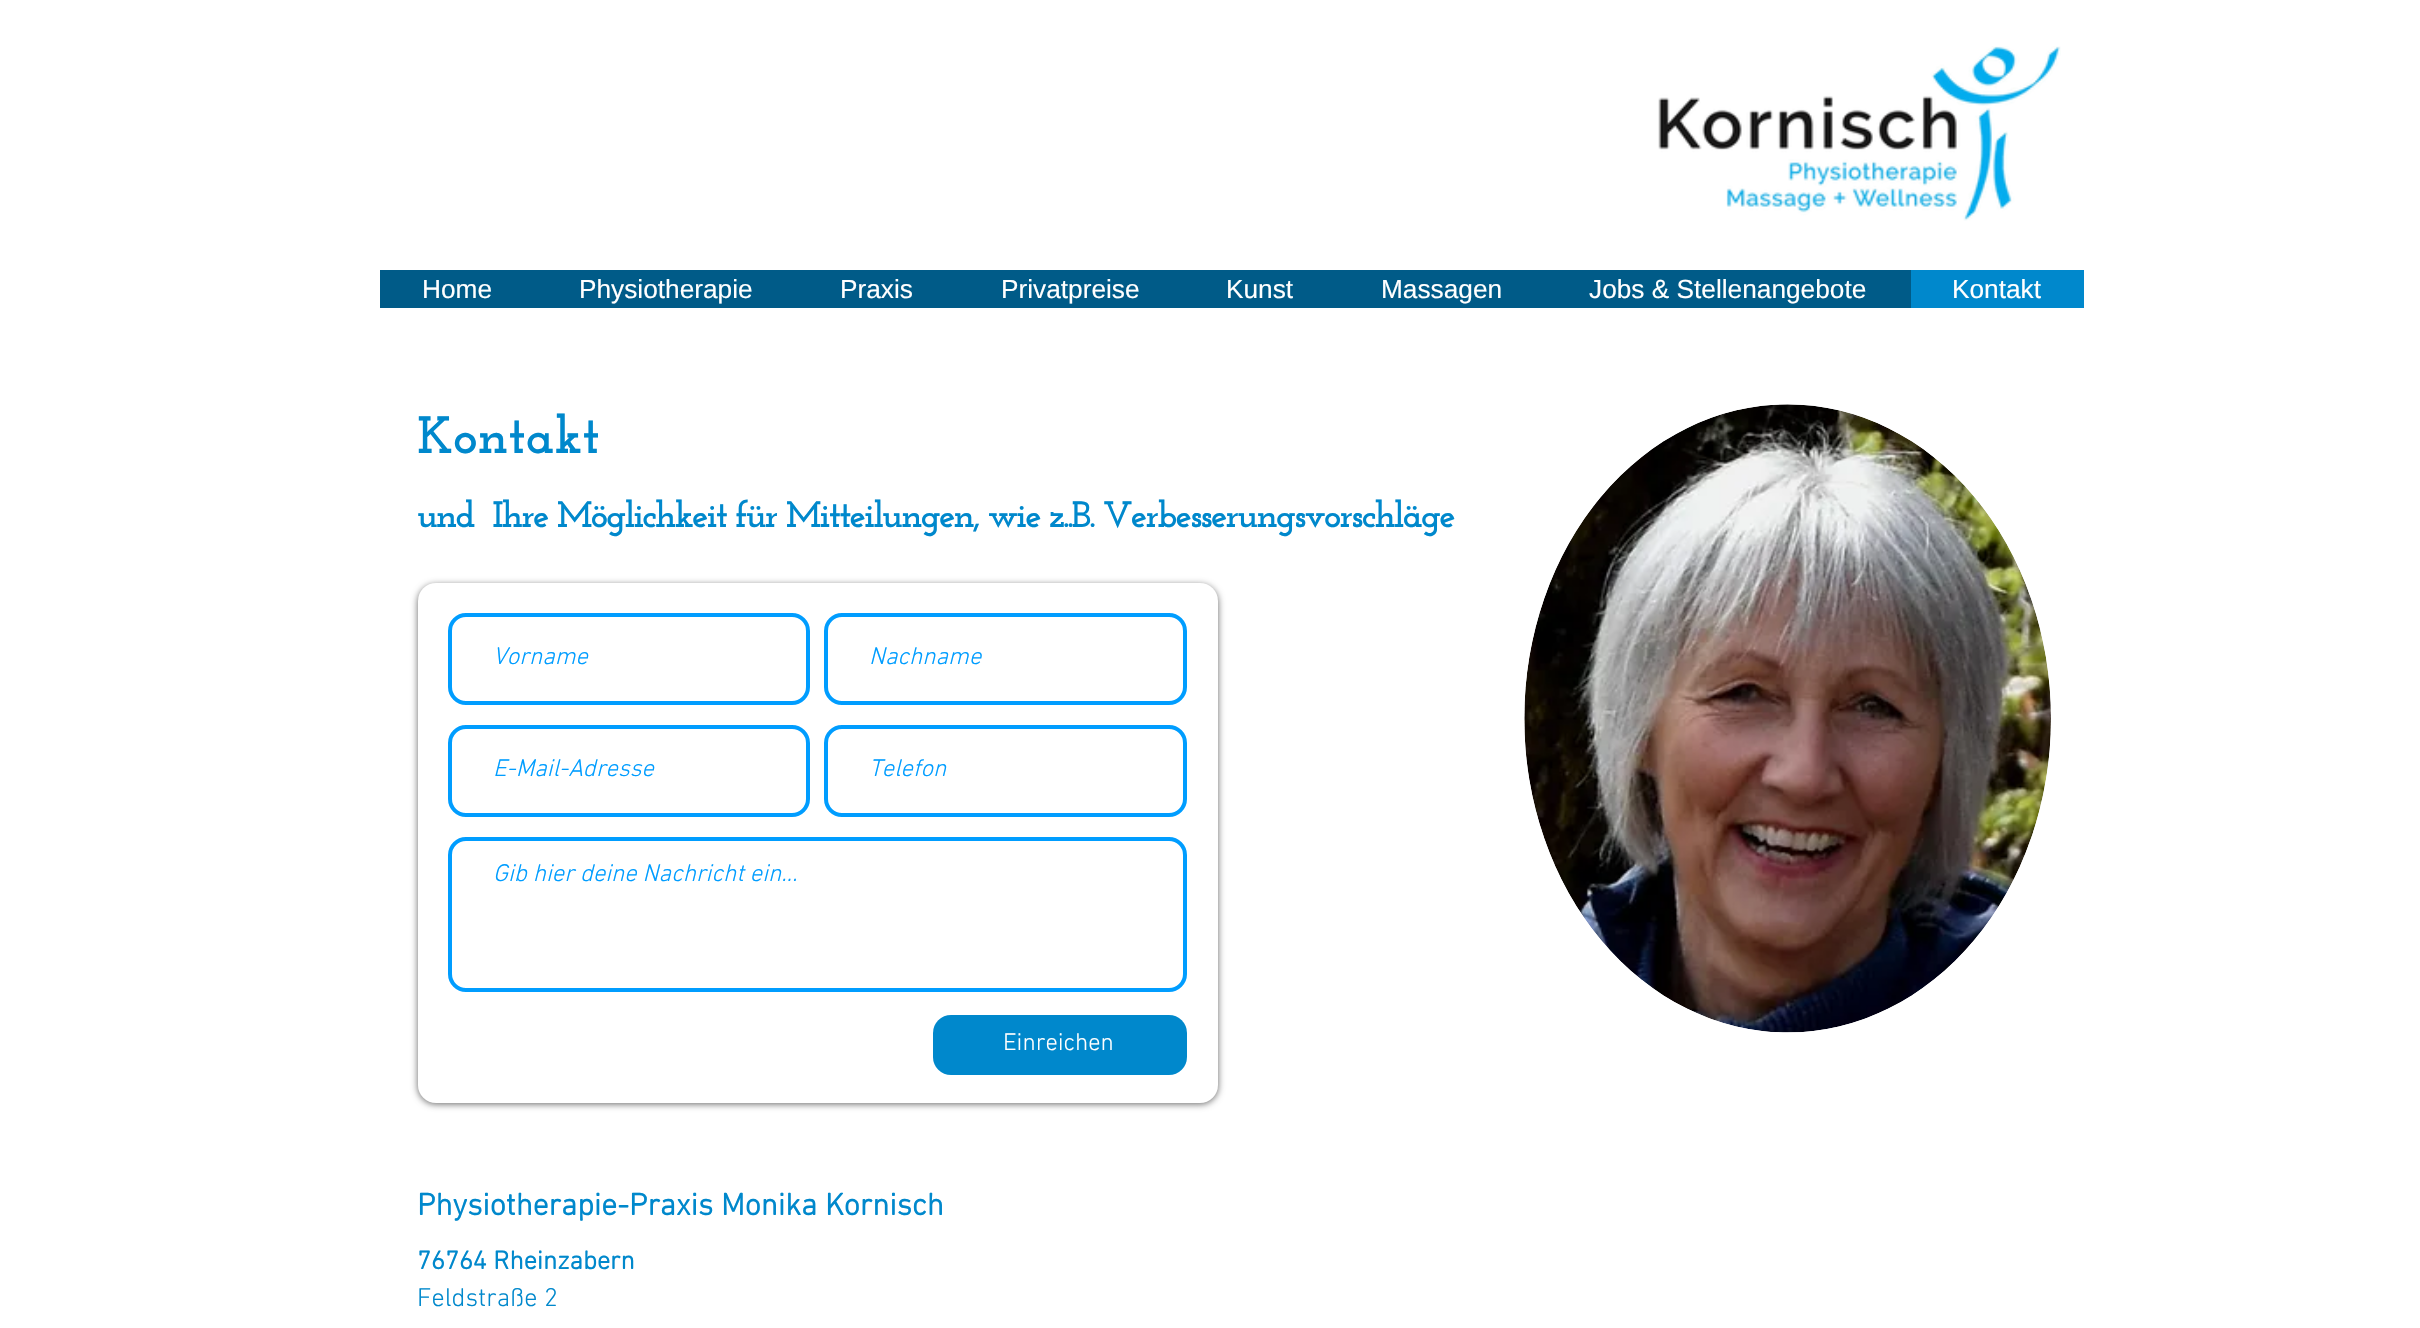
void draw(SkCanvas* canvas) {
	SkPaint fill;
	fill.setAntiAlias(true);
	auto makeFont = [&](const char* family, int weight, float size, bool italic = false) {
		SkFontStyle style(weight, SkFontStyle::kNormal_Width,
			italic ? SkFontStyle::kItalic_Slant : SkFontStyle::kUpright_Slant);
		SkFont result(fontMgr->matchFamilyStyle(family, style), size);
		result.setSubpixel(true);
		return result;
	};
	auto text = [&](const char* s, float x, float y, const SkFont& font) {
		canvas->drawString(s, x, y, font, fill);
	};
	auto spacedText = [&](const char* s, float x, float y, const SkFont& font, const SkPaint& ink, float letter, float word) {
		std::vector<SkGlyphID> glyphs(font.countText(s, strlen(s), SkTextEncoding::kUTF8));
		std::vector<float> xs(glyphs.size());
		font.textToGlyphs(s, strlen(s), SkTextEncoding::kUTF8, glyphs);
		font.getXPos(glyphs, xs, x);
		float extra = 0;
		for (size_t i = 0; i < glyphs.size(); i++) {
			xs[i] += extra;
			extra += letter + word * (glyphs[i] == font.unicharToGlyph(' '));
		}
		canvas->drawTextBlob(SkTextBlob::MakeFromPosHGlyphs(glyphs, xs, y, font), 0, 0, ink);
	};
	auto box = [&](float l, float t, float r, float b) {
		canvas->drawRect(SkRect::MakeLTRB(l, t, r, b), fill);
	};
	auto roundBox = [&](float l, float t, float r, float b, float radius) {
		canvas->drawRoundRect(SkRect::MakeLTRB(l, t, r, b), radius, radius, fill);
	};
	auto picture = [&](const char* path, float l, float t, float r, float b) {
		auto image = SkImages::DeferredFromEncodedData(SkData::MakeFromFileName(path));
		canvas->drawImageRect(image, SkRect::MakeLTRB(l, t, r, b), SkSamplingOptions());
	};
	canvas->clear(0xFFFFFFFF);
	picture("image0.png", 1658, 46, 2061, 221);
	fill.setColor(0xFF005B88);
	box(380, 270, 1911, 308);
	fill.setColor(0xFF0088CC);
	box(1911, 270, 2084, 308);
	picture("image1.png", 1524, 404, 2051, 1033);
	fill.setColor(0x99000000);
	fill.setMaskFilter(SkMaskFilter::MakeBlur(kNormal_SkBlurStyle, 3.5f));
	canvas->drawRoundRect(SkRect::MakeLTRB(418, 585, 1218, 1104), 18, 18, fill);
	fill.setMaskFilter(nullptr);
	fill.setColor(0xFFFFFFFF);
	roundBox(418, 583, 1218, 1103, 18);
	fill.setStyle(SkPaint::kStroke_Style);
	fill.setStrokeWidth(4);
	fill.setColor(0xFF009DFF);
	canvas->drawRoundRect(SkRect::MakeLTRB(450, 615, 808, 703), 16, 16, fill);
	canvas->drawRoundRect(SkRect::MakeLTRB(826, 615, 1185, 703), 16, 16, fill);
	canvas->drawRoundRect(SkRect::MakeLTRB(450, 727, 808, 815), 16, 16, fill);
	canvas->drawRoundRect(SkRect::MakeLTRB(826, 727, 1185, 815), 16, 16, fill);
	canvas->drawRoundRect(SkRect::MakeLTRB(450, 839, 1185, 990), 16, 16, fill);
	fill.setStyle(SkPaint::kFill_Style);
	fill.setColor(0xFF0088CC);
	roundBox(933, 1015, 1187, 1075, 18);
	auto font1 = makeFont("Liberation Sans", 400, 26.25f);
	fill.setColor(0xFFFFFFFF);
	text("Home", 422, 298, font1);
	text("Physiotherapie", 579, 298, font1);
	text("Praxis", 840, 298, font1);
	text("Privatpreise", 1001, 298, font1);
	text("Kunst", 1226, 298, font1);
	text("Massagen", 1381, 298, font1);
	text("Jobs & Stellenangebote", 1589, 298, font1);
	text("Kontakt", 1952, 298, font1);
	auto font2 = makeFont("Josefin Slab", 700, 52.5f);
	fill.setColor(0xFF0088CC);
	text("Kontakt", 417, 453, font2);
	auto font3 = makeFont("Josefin Slab", 700, 36.75f);
	spacedText("und  Ihre Möglichkeit für Mitteilungen, wie z..B. Verbesserungsvorschläge", 417, 527, font3, fill, -1.85f, 0);
	auto font4 = makeFont("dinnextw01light", 300, 24.5f, true);
	fill.setColor(0xFF009DFF);
	text("Vorname", 493, 664, font4);
	text("Nachname", 869, 664, font4);
	text("E-Mail-Adresse", 493, 776, font4);
	text("Telefon", 869, 776, font4);
	text("Gib hier deine Nachricht ein...", 493, 881, font4);
	auto font5 = makeFont("dinnextw01light", 300, 24.5f);
	fill.setColor(0xFFFFFFFF);
	text("Einreichen", 1003, 1050, font5);
	auto font6 = makeFont("dinnextw01light", 700, 31.5f);
	fill.setColor(0xFF0088CC);
	text("Physiotherapie-Praxis Monika Kornisch", 417, 1215, font6);
	auto font7 = makeFont("dinnextw01light", 700, 26.25f);
	text("76764 Rheinzabern", 417, 1269, font7);
	auto font8 = makeFont("dinnextw01light", 300, 26.25f);
	text("Feldstraße 2", 417, 1306, font8);
}
